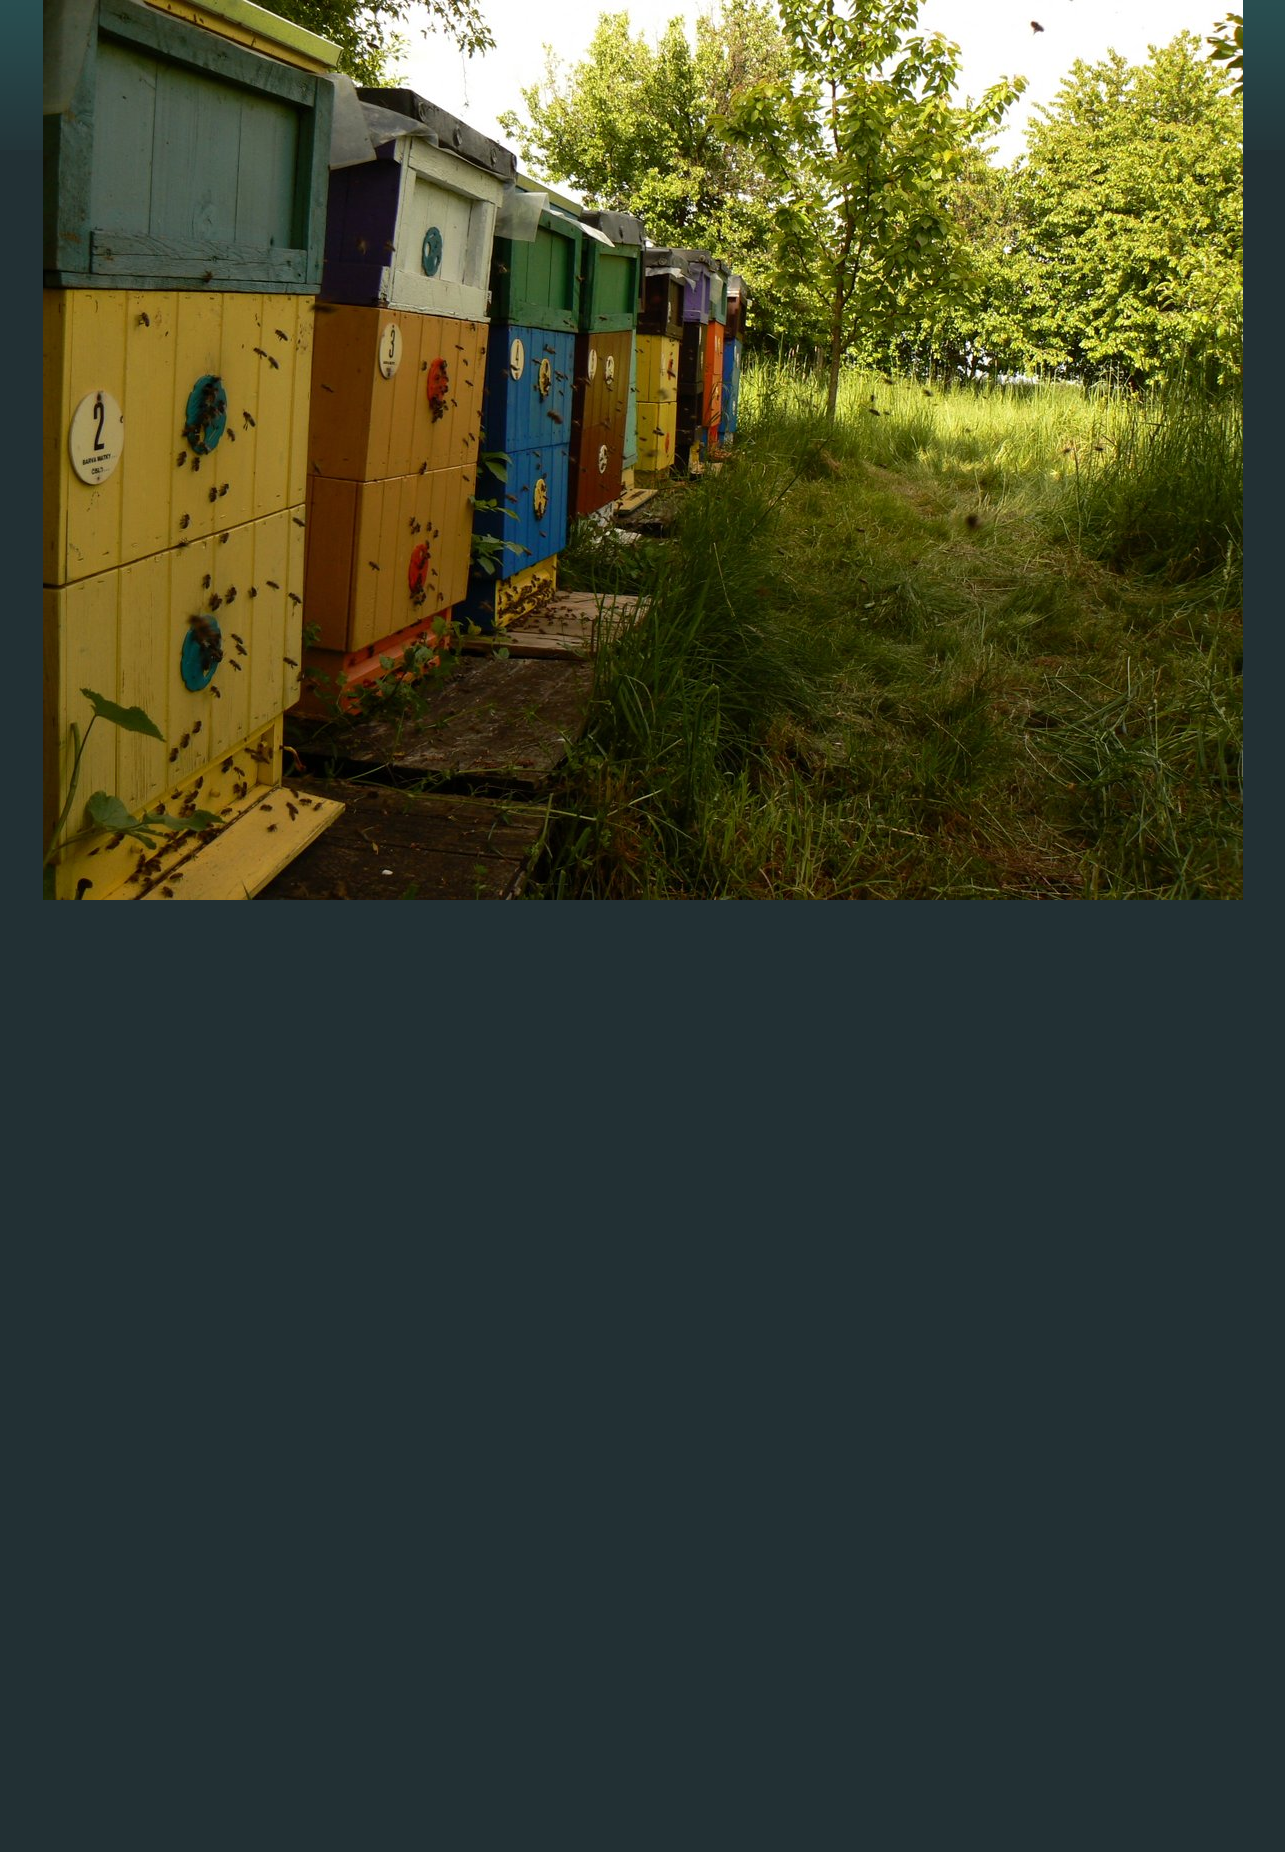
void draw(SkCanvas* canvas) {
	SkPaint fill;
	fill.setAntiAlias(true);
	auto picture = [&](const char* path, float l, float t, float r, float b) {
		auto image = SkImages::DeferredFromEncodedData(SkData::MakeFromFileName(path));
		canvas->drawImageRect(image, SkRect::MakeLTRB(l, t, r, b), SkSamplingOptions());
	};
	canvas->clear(0xFF223034);
	picture("image0.png", 0, 0, 1285, 150);
	picture("image1.png", 43, 0, 1243, 900);
}
